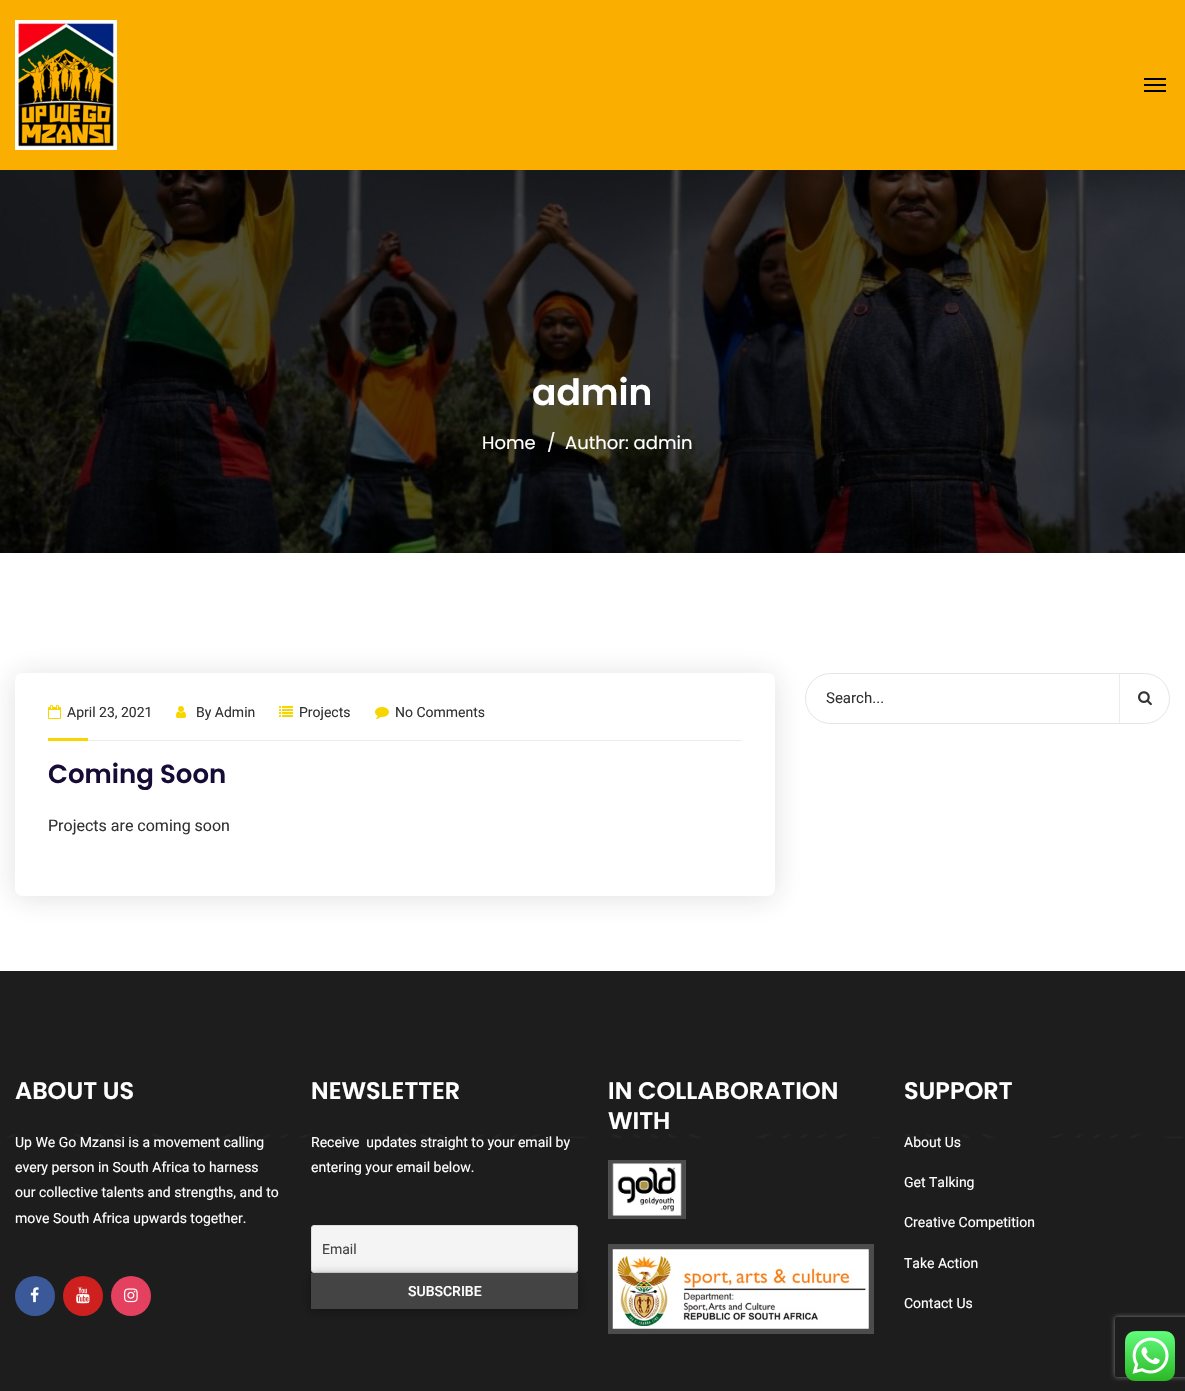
void draw(SkCanvas* canvas) {
	SkPaint fill;
	fill.setAntiAlias(true);
	auto makeFont = [&](const char* family, int weight, float size, bool italic = false) {
		SkFontStyle style(weight, SkFontStyle::kNormal_Width,
			italic ? SkFontStyle::kItalic_Slant : SkFontStyle::kUpright_Slant);
		SkFont result(fontMgr->matchFamilyStyle(family, style), size);
		result.setSubpixel(true);
		return result;
	};
	auto text = [&](const char* s, float x, float y, const SkFont& font) {
		canvas->drawString(s, x, y, font, fill);
	};
	auto box = [&](float l, float t, float r, float b) {
		canvas->drawRect(SkRect::MakeLTRB(l, t, r, b), fill);
	};
	auto roundBox = [&](float l, float t, float r, float b, float radius) {
		canvas->drawRoundRect(SkRect::MakeLTRB(l, t, r, b), radius, radius, fill);
	};
	auto picture = [&](const char* path, float l, float t, float r, float b) {
		auto image = SkImages::DeferredFromEncodedData(SkData::MakeFromFileName(path));
		canvas->drawImageRect(image, SkRect::MakeLTRB(l, t, r, b), SkSamplingOptions());
	};
	canvas->clear(0xFFFFFFFF);
	fill.setColor(0xFFF9AE00);
	box(0, 0, 1185, 170);
	picture("image0.png", 15, 20, 117, 150);
	fill.setColor(0xFF000000);
	box(1144, 78, 1166, 80);
	box(1144, 84, 1166, 86);
	box(1144, 90, 1166, 92);
	picture("image1.png", 0, 170, 1185, 553);
	fill.setColor(0x24222222);
	fill.setMaskFilter(SkMaskFilter::MakeBlur(kNormal_SkBlurStyle, 14.5f));
	canvas->drawRoundRect(SkRect::MakeLTRB(15, 675, 775, 898), 7, 7, fill);
	fill.setMaskFilter(nullptr);
	fill.setStyle(SkPaint::kStroke_Style);
	fill.setStrokeWidth(1);
	fill.setColor(0xFFE5E5E5);
	canvas->drawRoundRect(SkRect::MakeLTRB(805.5f, 673.5f, 1169.5f, 723.5f), 25, 25, fill);
	fill.setStyle(SkPaint::kFill_Style);
	fill.setColor(0xFFECECF0);
	box(1119, 673, 1120, 723);
	picture("image2.png", 1138, 691, 1152, 706);
	fill.setColor(0xFFFFFFFF);
	roundBox(15, 673, 775, 896, 7);
	fill.setColor(0xFFECECF0);
	box(88, 740, 742, 741);
	picture("image3.png", 48, 705, 61, 719);
	picture("image4.png", 176, 706, 186, 718);
	picture("image5.png", 279, 706, 293, 717);
	picture("image6.png", 375, 707, 389, 719);
	fill.setColor(0xFFF7D600);
	box(48, 738, 88, 741);
	fill.setColor(0xFF1D1D1D);
	box(0, 971, 1185, 1391);
	picture("image7.png", 7, 1134, 1183, 1138);
	fill.setColor(0xFF3B5999);
	canvas->drawCircle(35, 1296, 20, fill);
	picture("image8.png", 30, 1287, 39, 1303);
	fill.setColor(0xFFCD201F);
	canvas->drawCircle(83, 1296, 20, fill);
	picture("image9.png", 76, 1287, 90, 1304);
	fill.setColor(0xFFE4405F);
	canvas->drawCircle(131, 1296, 20, fill);
	picture("image10.png", 124, 1288, 138, 1303);
	fill.setColor(0xFFF4F4F4);
	canvas->drawRoundRect(SkRect::MakeLTRB(311.5f, 1225.5f, 577.5f, 1272.5f), 2.5f, 2.5f, fill);
	fill.setStyle(SkPaint::kStroke_Style);
	fill.setColor(0xFFDDDDDD);
	canvas->drawRoundRect(SkRect::MakeLTRB(311.5f, 1225.5f, 577.5f, 1272.5f), 2.5f, 2.5f, fill);
	fill.setStyle(SkPaint::kFill_Style);
	fill.setColor(0x5C000000);
	fill.setMaskFilter(SkMaskFilter::MakeBlur(kNormal_SkBlurStyle, 5));
	canvas->drawRect(SkRect::MakeLTRB(311, 1275, 578, 1311), fill);
	fill.setMaskFilter(nullptr);
	fill.setColor(0xFF444444);
	box(311, 1273, 578, 1309);
	picture("image11.png", 608, 1160, 686, 1219);
	picture("image12.png", 608, 1244, 874, 1334);
	canvas->save();
	canvas->clipPath(SkPathBuilder(SkPathFillType::kEvenOdd).moveTo(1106, 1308).lineTo(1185, 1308).lineTo(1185, 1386).lineTo(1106, 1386).close().moveTo(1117, 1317).lineTo(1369, 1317).cubicTo(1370, 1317, 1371, 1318, 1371, 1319).lineTo(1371, 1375).cubicTo(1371, 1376, 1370, 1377, 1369, 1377).lineTo(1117, 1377).cubicTo(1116, 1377, 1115, 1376, 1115, 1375).lineTo(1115, 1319).cubicTo(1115, 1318, 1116, 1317, 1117, 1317).close().detach(), true);
	fill.setColor(0xFF808080);
	fill.setMaskFilter(SkMaskFilter::MakeBlur(kNormal_SkBlurStyle, 2.5f));
	canvas->drawRoundRect(SkRect::MakeLTRB(1115, 1317, 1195, 1377), 2, 2, fill);
	fill.setMaskFilter(nullptr);
	canvas->restore();
	picture("image13.png", 1125, 1331, 1175, 1381);
	auto font1 = makeFont("Poppins", 600, 36);
	fill.setColor(0xFFFFFFFF);
	text("admin", 532, 405, font1);
	auto font2 = makeFont("Poppins", 400, 18);
	text("Home", 482, 449, font2);
	text("/", 547, 449, font2);
	text("Author: admin", 565, 449, font2);
	auto font3 = makeFont("Roboto", 400, 15);
	fill.setColor(0xFF333333);
	text("Search...", 826, 703, font3);
	auto font4 = makeFont("Roboto", 400, 14);
	text("April 23, 2021", 67, 717, font4);
	text("By Admin", 196, 717, font4);
	text("Projects", 299, 717, font4);
	text("No Comments", 395, 717, font4);
	auto font5 = makeFont("Poppins", 600, 26);
	fill.setColor(0xFF180B36);
	text("Coming Soon", 48, 783, font5);
	auto font6 = makeFont("Roboto", 400, 16);
	fill.setColor(0xFF333333);
	text("Projects are coming soon", 48, 831, font6);
	auto font7 = makeFont("Poppins", 600, 24);
	fill.setColor(0xFFFFFFFF);
	text("ABOUT US", 15, 1099, font7);
	text("Up We Go Mzansi is a movement calling", 15, 1147, font4);
	text("every person in South Africa to harness", 15, 1172, font4);
	text("our collective talents and strengths, and to", 15, 1197, font4);
	text("move South Africa upwards together.", 15, 1223, font4);
	text("NEWSLETTER", 311, 1099, font7);
	text("Receive  updates straight to your email by", 311, 1147, font4);
	text("entering your email below.", 311, 1172, font4);
	fill.setColor(0xFF444444);
	text("Email", 322, 1254, font4);
	auto font8 = makeFont("Roboto", 500, 14);
	fill.setColor(0xFFFFFFFF);
	text("SUBSCRIBE", 408, 1296, font8);
	text("IN COLLABORATION", 608, 1099, font7);
	text("WITH", 608, 1129, font7);
	text("SUPPORT", 904, 1099, font7);
	text("About Us", 904, 1147, font4);
	text("Get Talking", 904, 1187, font4);
	text("Creative Competition", 904, 1227, font4);
	text("Take Action", 904, 1268, font4);
	text("Contact Us", 904, 1308, font4);
}
